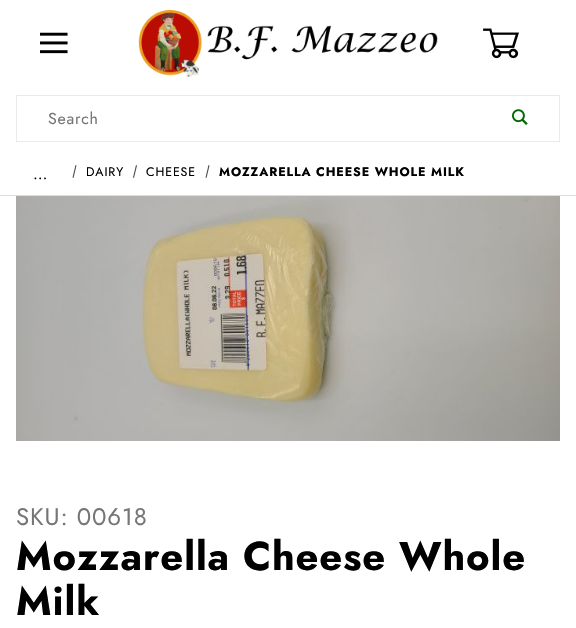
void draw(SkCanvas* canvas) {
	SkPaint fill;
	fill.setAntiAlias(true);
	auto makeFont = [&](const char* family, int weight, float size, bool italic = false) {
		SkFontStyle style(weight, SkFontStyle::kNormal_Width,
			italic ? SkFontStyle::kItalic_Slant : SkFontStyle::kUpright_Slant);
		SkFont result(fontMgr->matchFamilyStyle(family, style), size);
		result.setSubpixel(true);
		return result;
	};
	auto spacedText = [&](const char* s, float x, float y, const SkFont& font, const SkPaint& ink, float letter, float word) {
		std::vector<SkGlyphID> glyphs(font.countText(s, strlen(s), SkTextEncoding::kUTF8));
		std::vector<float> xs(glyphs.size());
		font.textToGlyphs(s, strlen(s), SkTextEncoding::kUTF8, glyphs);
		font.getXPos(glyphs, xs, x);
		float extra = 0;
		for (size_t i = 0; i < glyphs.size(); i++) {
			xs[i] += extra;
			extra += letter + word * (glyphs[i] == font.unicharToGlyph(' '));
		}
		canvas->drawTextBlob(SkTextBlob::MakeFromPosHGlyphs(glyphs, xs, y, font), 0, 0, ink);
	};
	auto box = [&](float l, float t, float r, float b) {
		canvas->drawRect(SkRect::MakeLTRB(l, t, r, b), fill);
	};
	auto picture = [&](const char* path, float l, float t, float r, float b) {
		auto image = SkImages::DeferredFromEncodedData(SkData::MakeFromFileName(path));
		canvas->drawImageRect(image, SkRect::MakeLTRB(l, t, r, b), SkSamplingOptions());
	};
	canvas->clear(0xFFFFFFFF);
	picture("image0.png", 40, 32, 68, 54);
	picture("image1.png", 138, 10, 438, 77);
	picture("image2.png", 483, 28, 519, 59);
	fill.setStyle(SkPaint::kStroke_Style);
	fill.setStrokeWidth(1);
	fill.setColor(0xFFEAEAEA);
	canvas->drawRect(SkRect::MakeLTRB(16.5f, 95.5f, 559.5f, 141.5f), fill);
	picture("image3.png", 512, 109, 528, 125);
	fill.setStyle(SkPaint::kFill_Style);
	fill.setColor(0xFFDDDDDD);
	box(0, 195, 576, 196);
	fill.setColor(0xFF4A4A4A);
	canvas->drawPath(SkPathBuilder().moveTo(136, 165).lineTo(137, 165.5f).lineTo(134, 178).lineTo(133, 177.5f).close().detach(), fill);
	canvas->drawPath(SkPathBuilder().moveTo(208.5f, 165).lineTo(209.5f, 165.5f).lineTo(206.5f, 178).lineTo(205.5f, 177.5f).close().detach(), fill);
	canvas->drawPath(SkPathBuilder().moveTo(75.5f, 165).lineTo(76.5f, 165.5f).lineTo(73.5f, 178).lineTo(72.5f, 177.5f).close().detach(), fill);
	picture("image4.png", 16, 196, 560, 441);
	auto font1 = makeFont("Jost", 400, 16);
	fill.setColor(0xFF767676);
	spacedText("Search", 48, 124, font1, fill, 0.75f, 0);
	auto font2 = makeFont("Jost", 400, 12.4f);
	fill.setColor(0xFF000000);
	spacedText("DAIRY", 86, 176, font2, fill, 0.9f, 0);
	spacedText("CHEESE", 146, 176, font2, fill, 0.9f, 0);
	auto font3 = makeFont("Jost", 700, 12.4f);
	spacedText("MOZZARELLA CHEESE WHOLE MILK", 219, 176, font3, fill, 0.9f, 0);
	spacedText("…", 33, 179, font1, fill, 1, 0);
	auto font4 = makeFont("Jost", 400, 24);
	fill.setColor(0xFF767676);
	spacedText("SKU: 00618", 16, 525, font4, fill, 0.9f, 0);
	auto font5 = makeFont("Jost", 700, 40);
	fill.setColor(0xFF000000);
	spacedText("Mozzarella Cheese Whole", 16, 570, font5, fill, 0.9f, 0);
	spacedText("Milk", 16, 615, font5, fill, 0.9f, 0);
}
